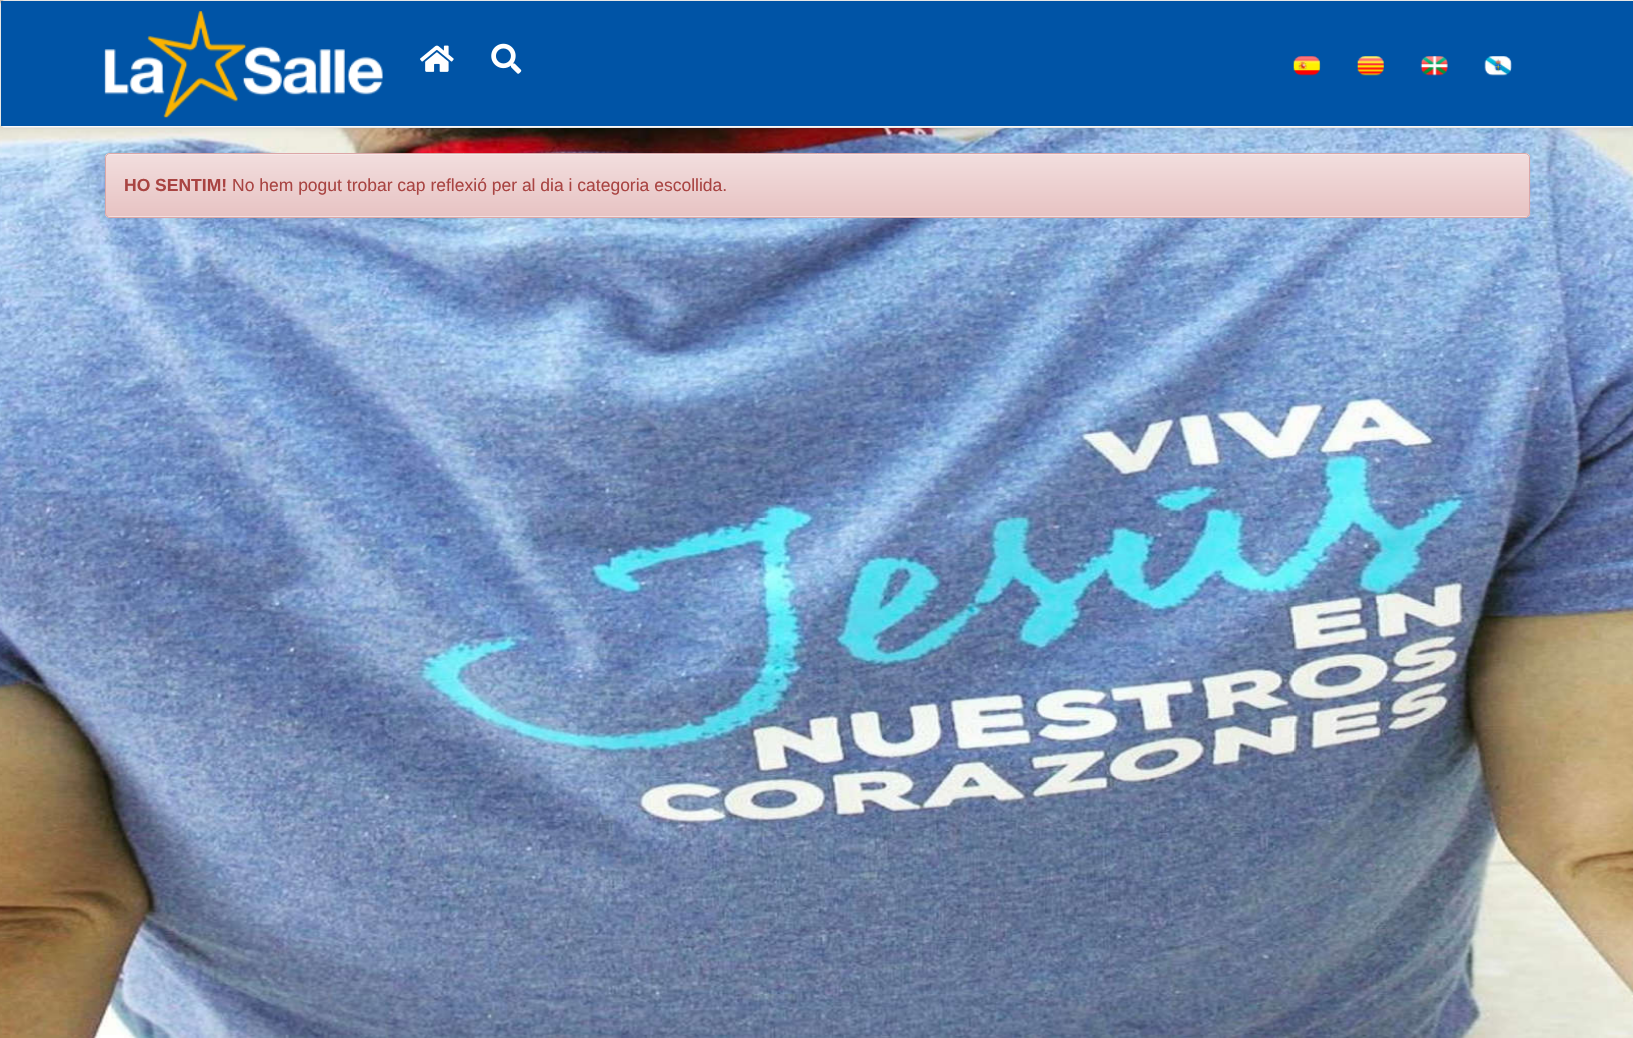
void draw(SkCanvas* canvas) {
	SkPaint fill;
	fill.setAntiAlias(true);
	auto makeFont = [&](const char* family, int weight, float size, bool italic = false) {
		SkFontStyle style(weight, SkFontStyle::kNormal_Width,
			italic ? SkFontStyle::kItalic_Slant : SkFontStyle::kUpright_Slant);
		SkFont result(fontMgr->matchFamilyStyle(family, style), size);
		result.setSubpixel(true);
		return result;
	};
	auto text = [&](const char* s, float x, float y, const SkFont& font) {
		canvas->drawString(s, x, y, font, fill);
	};
	auto box = [&](float l, float t, float r, float b) {
		canvas->drawRect(SkRect::MakeLTRB(l, t, r, b), fill);
	};
	auto roundBox = [&](float l, float t, float r, float b, float radius) {
		canvas->drawRoundRect(SkRect::MakeLTRB(l, t, r, b), radius, radius, fill);
	};
	auto picture = [&](const char* path, float l, float t, float r, float b) {
		auto image = SkImages::DeferredFromEncodedData(SkData::MakeFromFileName(path));
		canvas->drawImageRect(image, SkRect::MakeLTRB(l, t, r, b), SkSamplingOptions());
	};
	canvas->clear(0xFFFFFFFF);
	picture("image0.png", 0, 0, 1633, 1038);
	fill.setColor(0x12000000);
	fill.setMaskFilter(SkMaskFilter::MakeBlur(kNormal_SkBlurStyle, 3));
	canvas->drawRoundRect(SkRect::MakeLTRB(0, 1, 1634, 129), 5, 5, fill);
	fill.setMaskFilter(nullptr);
	fill.setColor(0xFFF8F8F8);
	canvas->drawRoundRect(SkRect::MakeLTRB(0.5f, 0.5f, 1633.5f, 127.5f), 4.5f, 4.5f, fill);
	fill.setStyle(SkPaint::kStroke_Style);
	fill.setStrokeWidth(1);
	fill.setColor(0xFFE7E7E7);
	canvas->drawRoundRect(SkRect::MakeLTRB(0.5f, 0.5f, 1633.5f, 127.5f), 4.5f, 4.5f, fill);
	fill.setStyle(SkPaint::kFill_Style);
	fill.setColor(0xFF0054A6);
	box(1, 1, 1633, 126);
	picture("image1.png", 104, 11, 383, 118);
	picture("image2.png", 420, 45, 454, 72);
	picture("image3.png", 491, 43, 522, 74);
	picture("image4.png", 1293, 56, 1321, 76);
	picture("image5.png", 1357, 56, 1384, 76);
	picture("image6.png", 1420, 56, 1448, 76);
	picture("image7.png", 1484, 56, 1512, 76);
	fill.setColor(0x0D000000);
	fill.setMaskFilter(SkMaskFilter::MakeBlur(kNormal_SkBlurStyle, 1));
	canvas->drawRoundRect(SkRect::MakeLTRB(105, 154, 1530, 219), 5, 5, fill);
	fill.setMaskFilter(nullptr);
	fill.setColor(0xFFF2DEDE);
	roundBox(105, 153, 1530, 218, 5);
	canvas->save();
	canvas->clipPath(SkPathBuilder().moveTo(110, 153).lineTo(1525, 153).cubicTo(1528, 153, 1530, 155, 1530, 158).lineTo(1530, 213).cubicTo(1530, 216, 1528, 218, 1525, 218).lineTo(110, 218).cubicTo(107, 218, 105, 216, 105, 213).lineTo(105, 158).cubicTo(105, 155, 107, 153, 110, 153).close().detach(), true);
	{
		const SkColor colors[] = {0xFFF2DEDE, 0xFFE7C3C3};
		const float stops[] = {0, 1};
		const SkPoint ends[] = {{818, 154}, {818, 216}};
		fill.setShader(SkGradientShader::MakeLinear(ends, colors, stops, 2, SkTileMode::kClamp));
		fill.setAlpha(255);
	}
	box(105, 154, 1530, 216);
	canvas->restore();
	fill.setShader(nullptr);
	fill.setColor(0xFFF5E6E6);
	canvas->drawPath(SkPathBuilder().moveTo(110, 155).lineTo(1525, 155).cubicTo(1527, 155, 1529, 157, 1529, 159).lineTo(1529, 158).cubicTo(1529, 156, 1527, 154, 1525, 154).lineTo(110, 154).cubicTo(108, 154, 106, 156, 106, 158).lineTo(106, 159).cubicTo(106, 157, 108, 155, 110, 155).close().detach(), fill);
	fill.setStyle(SkPaint::kStroke_Style);
	fill.setColor(0xFFDCA7A7);
	canvas->drawRoundRect(SkRect::MakeLTRB(105.5f, 153.5f, 1529.5f, 217.5f), 4.5f, 4.5f, fill);
	auto font1 = makeFont("Liberation Sans", 700, 17.5f);
	fill.setStyle(SkPaint::kFill_Style);
	fill.setColor(0xFFA94442);
	text("HO SENTIM!", 124, 191, font1);
	auto font2 = makeFont("Liberation Sans", 400, 17.5f);
	text("No hem pogut trobar cap reflexió per al dia i categoria escollida.", 232, 191, font2);
}
